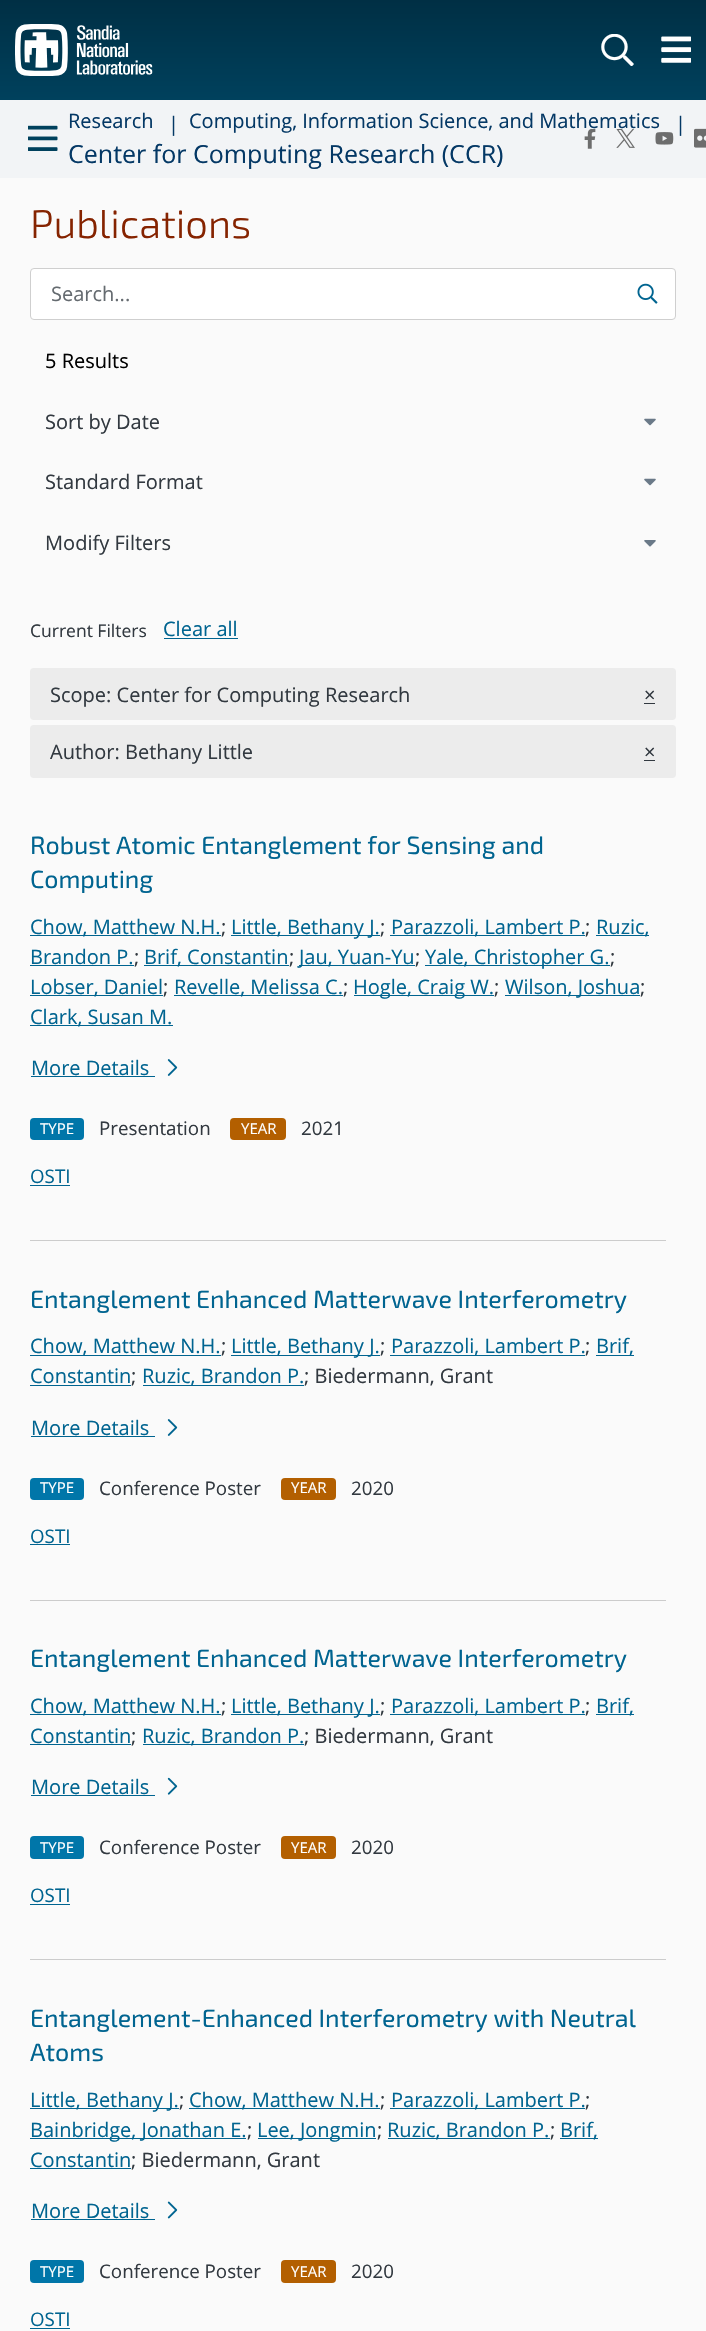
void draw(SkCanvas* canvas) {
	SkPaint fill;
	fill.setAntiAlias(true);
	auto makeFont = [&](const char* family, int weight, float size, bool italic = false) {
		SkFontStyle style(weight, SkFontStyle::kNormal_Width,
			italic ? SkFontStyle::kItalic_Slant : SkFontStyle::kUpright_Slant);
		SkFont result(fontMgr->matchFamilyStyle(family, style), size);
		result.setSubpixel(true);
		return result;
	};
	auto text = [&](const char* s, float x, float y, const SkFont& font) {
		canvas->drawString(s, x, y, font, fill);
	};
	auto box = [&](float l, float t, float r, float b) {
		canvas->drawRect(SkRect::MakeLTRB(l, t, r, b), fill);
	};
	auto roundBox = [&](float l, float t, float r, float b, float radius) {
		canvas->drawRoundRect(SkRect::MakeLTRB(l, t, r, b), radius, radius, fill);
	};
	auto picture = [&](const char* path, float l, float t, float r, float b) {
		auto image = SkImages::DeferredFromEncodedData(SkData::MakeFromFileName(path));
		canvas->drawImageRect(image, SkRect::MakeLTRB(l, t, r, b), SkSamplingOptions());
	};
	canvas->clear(0xFFFAFAFA);
	{
		const SkColor colors[] = {0xFF002F44, 0xFF00415D};
		const float stops[] = {0, 1};
		const SkPoint ends[] = {{353, 0}, {353, 100}};
		fill.setShader(SkGradientShader::MakeLinear(ends, colors, stops, 2, SkTileMode::kClamp));
		fill.setAlpha(255);
	}
	box(0, 0, 706, 100);
	picture("image0.png", 15, 24, 153, 76);
	picture("image1.png", 601, 34, 634, 66);
	picture("image2.png", 661, 36, 691, 63);
	fill.setShader(nullptr);
	fill.setColor(0xFFF2F4F6);
	box(0, 100, 706, 178);
	picture("image3.png", 28, 125, 58, 151);
	picture("image4.png", 584, 129, 596, 149);
	picture("image5.png", 616, 129, 635, 148);
	picture("image6.png", 655, 132, 674, 145);
	picture("image7.png", 694, 128, 706, 148);
	fill.setColor(0xFFFFFFFF);
	roundBox(31, 269, 675, 319, 2.5f);
	fill.setStyle(SkPaint::kStroke_Style);
	fill.setStrokeWidth(1);
	fill.setColor(0xFFCFCFCF);
	canvas->drawRoundRect(SkRect::MakeLTRB(30.5f, 268.5f, 675.5f, 319.5f), 3.5f, 3.5f, fill);
	picture("image8.png", 637, 283, 658, 304);
	picture("image9.png", 644, 418, 656, 426);
	picture("image9.png", 644, 478, 656, 486);
	picture("image10.png", 644, 540, 656, 547);
	fill.setStyle(SkPaint::kFill_Style);
	fill.setColor(0xFF006490);
	box(164, 638, 238, 639);
	fill.setColor(0xFFECECEC);
	roundBox(30, 668, 676, 720, 4);
	fill.setColor(0xFF323940);
	box(644, 703, 655, 704);
	fill.setColor(0xFFECECEC);
	roundBox(30, 725, 676, 778, 4);
	fill.setColor(0xFF323940);
	box(644, 760, 655, 761);
	fill.setColor(0xFFCCCCCC);
	box(30, 1240, 666, 1241);
	fill.setColor(0xFF006490);
	box(30, 935, 221, 936);
	box(231, 935, 380, 936);
	box(390, 935, 585, 936);
	box(596, 935, 649, 936);
	box(30, 965, 134, 966);
	box(144, 965, 289, 966);
	box(299, 965, 415, 966);
	box(425, 965, 610, 966);
	box(30, 995, 163, 996);
	box(174, 995, 343, 996);
	box(354, 995, 494, 996);
	box(505, 995, 640, 996);
	box(30, 1025, 173, 1026);
	box(31, 1076, 155, 1077);
	picture("image11.png", 167, 1059, 178, 1076);
	fill.setColor(0xFF0076A9);
	roundBox(30, 1118, 84, 1140, 4);
	fill.setColor(0xFFB35F00);
	roundBox(230, 1118, 286, 1140, 4);
	fill.setColor(0xFF006490);
	box(30, 1185, 70, 1186);
	fill.setColor(0xFFCCCCCC);
	box(30, 1600, 666, 1601);
	fill.setColor(0xFF006490);
	box(30, 1355, 221, 1356);
	box(231, 1355, 380, 1356);
	box(390, 1355, 585, 1356);
	box(596, 1355, 634, 1356);
	box(30, 1385, 131, 1386);
	box(143, 1385, 304, 1386);
	box(31, 1436, 155, 1437);
	picture("image11.png", 167, 1419, 178, 1436);
	fill.setColor(0xFF0076A9);
	roundBox(30, 1478, 84, 1500, 4);
	fill.setColor(0xFFB35F00);
	roundBox(281, 1478, 336, 1500, 4);
	fill.setColor(0xFF006490);
	box(30, 1544, 70, 1545);
	fill.setColor(0xFFCCCCCC);
	box(30, 1959, 666, 1960);
	fill.setColor(0xFF006490);
	box(30, 1714, 221, 1715);
	box(231, 1714, 380, 1715);
	box(390, 1714, 585, 1715);
	box(596, 1714, 634, 1715);
	box(30, 1744, 131, 1745);
	box(143, 1744, 304, 1745);
	box(31, 1795, 155, 1796);
	picture("image12.png", 167, 1777, 178, 1795);
	fill.setColor(0xFF0076A9);
	roundBox(30, 1836, 84, 1859, 4);
	fill.setColor(0xFFB35F00);
	roundBox(281, 1836, 336, 1859, 4);
	fill.setColor(0xFF006490);
	box(30, 1904, 70, 1905);
	box(30, 2108, 179, 2109);
	box(189, 2108, 380, 2109);
	box(390, 2108, 585, 2109);
	box(30, 2138, 246, 2139);
	box(258, 2138, 376, 2139);
	box(388, 2138, 550, 2139);
	box(560, 2138, 598, 2139);
	box(30, 2168, 131, 2169);
	box(31, 2219, 155, 2220);
	picture("image13.png", 167, 2201, 178, 2219);
	fill.setColor(0xFF0076A9);
	roundBox(30, 2260, 84, 2283, 4);
	fill.setColor(0xFFB35F00);
	roundBox(281, 2260, 336, 2283, 4);
	fill.setColor(0xFF006490);
	box(30, 2328, 70, 2329);
	auto font1 = makeFont("Open Sans", 400, 20);
	fill.setColor(0xFF043865);
	text("Research", 68, 128, font1);
	text("|", 168, 131, font1);
	text("Computing, Information Science, and Mathematics", 189, 128, font1);
	text("|", 675, 131, font1);
	auto font2 = makeFont("Open Sans", 400, 25);
	text("Center for Computing Research (CCR)", 68, 163, font2);
	auto font3 = makeFont("Exo 2", 300, 40);
	fill.setColor(0xFF852300);
	text("Publications", 30, 238, font3);
	fill.setColor(0xFF656B70);
	text("Search...", 51, 301, font1);
	fill.setColor(0xFF000000);
	text("5 Results", 45, 368, font1);
	fill.setColor(0xFF323940);
	text("Sort by Date", 45, 429, font1);
	text("Standard Format", 45, 489, font1);
	text("Modify Filters", 45, 550, font1);
	auto font4 = makeFont("Open Sans", 400, 17.5f);
	text("Current Filters", 30, 637, font4);
	fill.setColor(0xFF006490);
	text("Clear all", 163, 636, font1);
	fill.setColor(0xFF323940);
	text("Scope: Center for Computing Research", 50, 702, font1);
	text("×", 644, 702, font1);
	text("Author: Bethany Little", 50, 759, font1);
	text("×", 644, 759, font1);
	auto font5 = makeFont("Exo 2", 400, 25);
	fill.setColor(0xFF006490);
	text("Robust Atomic Entanglement for Sensing and", 30, 854, font5);
	text("Computing", 30, 888, font5);
	text("Chow, Matthew N.H.", 30, 934, font1);
	fill.setColor(0xFF323940);
	text(";", 221, 934, font1);
	fill.setColor(0xFF006490);
	text("Little, Bethany J.", 231, 934, font1);
	fill.setColor(0xFF323940);
	text(";", 380, 934, font1);
	fill.setColor(0xFF006490);
	text("Parazzoli, Lambert P.", 391, 934, font1);
	fill.setColor(0xFF323940);
	text(";", 585, 934, font1);
	fill.setColor(0xFF006490);
	text("Ruzic,", 596, 934, font1);
	text("Brandon P.", 30, 964, font1);
	fill.setColor(0xFF323940);
	text(";", 134, 964, font1);
	fill.setColor(0xFF006490);
	text("Brif, Constantin", 144, 964, font1);
	fill.setColor(0xFF323940);
	text(";", 289, 964, font1);
	fill.setColor(0xFF006490);
	text("Jau, Yuan-Yu", 299, 964, font1);
	fill.setColor(0xFF323940);
	text(";", 415, 964, font1);
	fill.setColor(0xFF006490);
	text("Yale, Christopher G.", 425, 964, font1);
	fill.setColor(0xFF323940);
	text(";", 610, 964, font1);
	fill.setColor(0xFF006490);
	text("Lobser, Daniel", 30, 994, font1);
	fill.setColor(0xFF323940);
	text(";", 163, 994, font1);
	fill.setColor(0xFF006490);
	text("Revelle, Melissa C.", 174, 994, font1);
	fill.setColor(0xFF323940);
	text(";", 343, 994, font1);
	fill.setColor(0xFF006490);
	text("Hogle, Craig W.", 353, 994, font1);
	fill.setColor(0xFF323940);
	text(";", 494, 994, font1);
	fill.setColor(0xFF006490);
	text("Wilson, Joshua", 505, 994, font1);
	fill.setColor(0xFF323940);
	text(";", 640, 994, font1);
	fill.setColor(0xFF006490);
	text("Clark, Susan M.", 30, 1024, font1);
	text("More Details", 31, 1075, font1);
	auto font6 = makeFont("Open Sans", 400, 15);
	fill.setColor(0xFFFFFFFF);
	text("TYPE", 40, 1134, font6);
	auto font7 = makeFont("Open Sans", 400, 18.75f);
	fill.setColor(0xFF323940);
	text("Presentation", 99, 1135, font7);
	fill.setColor(0xFFFFFFFF);
	text("YEAR", 241, 1134, font6);
	fill.setColor(0xFF323940);
	text("2021", 301, 1135, font7);
	fill.setColor(0xFF006490);
	text("OSTI", 30, 1183, font7);
	text("Entanglement Enhanced Matterwave Interferometry", 30, 1308, font5);
	text("Chow, Matthew N.H.", 30, 1353, font1);
	fill.setColor(0xFF323940);
	text(";", 221, 1353, font1);
	fill.setColor(0xFF006490);
	text("Little, Bethany J.", 231, 1353, font1);
	fill.setColor(0xFF323940);
	text(";", 380, 1353, font1);
	fill.setColor(0xFF006490);
	text("Parazzoli, Lambert P.", 391, 1353, font1);
	fill.setColor(0xFF323940);
	text(";", 585, 1353, font1);
	fill.setColor(0xFF006490);
	text("Brif,", 596, 1353, font1);
	text("Constantin", 30, 1383, font1);
	fill.setColor(0xFF323940);
	text(";", 131, 1383, font1);
	fill.setColor(0xFF006490);
	text("Ruzic, Brandon P.", 142, 1383, font1);
	fill.setColor(0xFF323940);
	text("; Biedermann, Grant", 304, 1383, font1);
	fill.setColor(0xFF006490);
	text("More Details", 31, 1435, font1);
	fill.setColor(0xFFFFFFFF);
	text("TYPE", 40, 1493, font6);
	fill.setColor(0xFF323940);
	text("Conference Poster", 99, 1495, font7);
	fill.setColor(0xFFFFFFFF);
	text("YEAR", 291, 1493, font6);
	fill.setColor(0xFF323940);
	text("2020", 351, 1495, font7);
	fill.setColor(0xFF006490);
	text("OSTI", 30, 1543, font7);
	text("Entanglement Enhanced Matterwave Interferometry", 30, 1667, font5);
	text("Chow, Matthew N.H.", 30, 1713, font1);
	fill.setColor(0xFF323940);
	text(";", 221, 1713, font1);
	fill.setColor(0xFF006490);
	text("Little, Bethany J.", 231, 1713, font1);
	fill.setColor(0xFF323940);
	text(";", 380, 1713, font1);
	fill.setColor(0xFF006490);
	text("Parazzoli, Lambert P.", 391, 1713, font1);
	fill.setColor(0xFF323940);
	text(";", 585, 1713, font1);
	fill.setColor(0xFF006490);
	text("Brif,", 596, 1713, font1);
	text("Constantin", 30, 1743, font1);
	fill.setColor(0xFF323940);
	text(";", 131, 1743, font1);
	fill.setColor(0xFF006490);
	text("Ruzic, Brandon P.", 142, 1743, font1);
	fill.setColor(0xFF323940);
	text("; Biedermann, Grant", 304, 1743, font1);
	fill.setColor(0xFF006490);
	text("More Details", 31, 1794, font1);
	fill.setColor(0xFFFFFFFF);
	text("TYPE", 40, 1853, font6);
	fill.setColor(0xFF323940);
	text("Conference Poster", 99, 1854, font7);
	fill.setColor(0xFFFFFFFF);
	text("YEAR", 291, 1853, font6);
	fill.setColor(0xFF323940);
	text("2020", 351, 1854, font7);
	fill.setColor(0xFF006490);
	text("OSTI", 30, 1902, font7);
	text("Entanglement-Enhanced Interferometry with Neutral", 30, 2027, font5);
	text("Atoms", 30, 2061, font5);
	text("Little, Bethany J.", 30, 2107, font1);
	fill.setColor(0xFF323940);
	text(";", 179, 2107, font1);
	fill.setColor(0xFF006490);
	text("Chow, Matthew N.H.", 189, 2107, font1);
	fill.setColor(0xFF323940);
	text(";", 380, 2107, font1);
	fill.setColor(0xFF006490);
	text("Parazzoli, Lambert P.", 391, 2107, font1);
	fill.setColor(0xFF323940);
	text(";", 585, 2107, font1);
	fill.setColor(0xFF006490);
	text("Bainbridge, Jonathan E.", 30, 2137, font1);
	fill.setColor(0xFF323940);
	text(";", 247, 2137, font1);
	fill.setColor(0xFF006490);
	text("Lee, Jongmin", 257, 2137, font1);
	fill.setColor(0xFF323940);
	text(";", 377, 2137, font1);
	fill.setColor(0xFF006490);
	text("Ruzic, Brandon P.", 387, 2137, font1);
	fill.setColor(0xFF323940);
	text(";", 550, 2137, font1);
	fill.setColor(0xFF006490);
	text("Brif,", 560, 2137, font1);
	text("Constantin", 30, 2167, font1);
	fill.setColor(0xFF323940);
	text("; Biedermann, Grant", 131, 2167, font1);
	fill.setColor(0xFF006490);
	text("More Details", 31, 2218, font1);
	fill.setColor(0xFFFFFFFF);
	text("TYPE", 40, 2277, font6);
	fill.setColor(0xFF323940);
	text("Conference Poster", 99, 2278, font7);
	fill.setColor(0xFFFFFFFF);
	text("YEAR", 291, 2277, font6);
	fill.setColor(0xFF323940);
	text("2020", 351, 2278, font7);
	fill.setColor(0xFF006490);
	text("OSTI", 30, 2326, font7);
}
